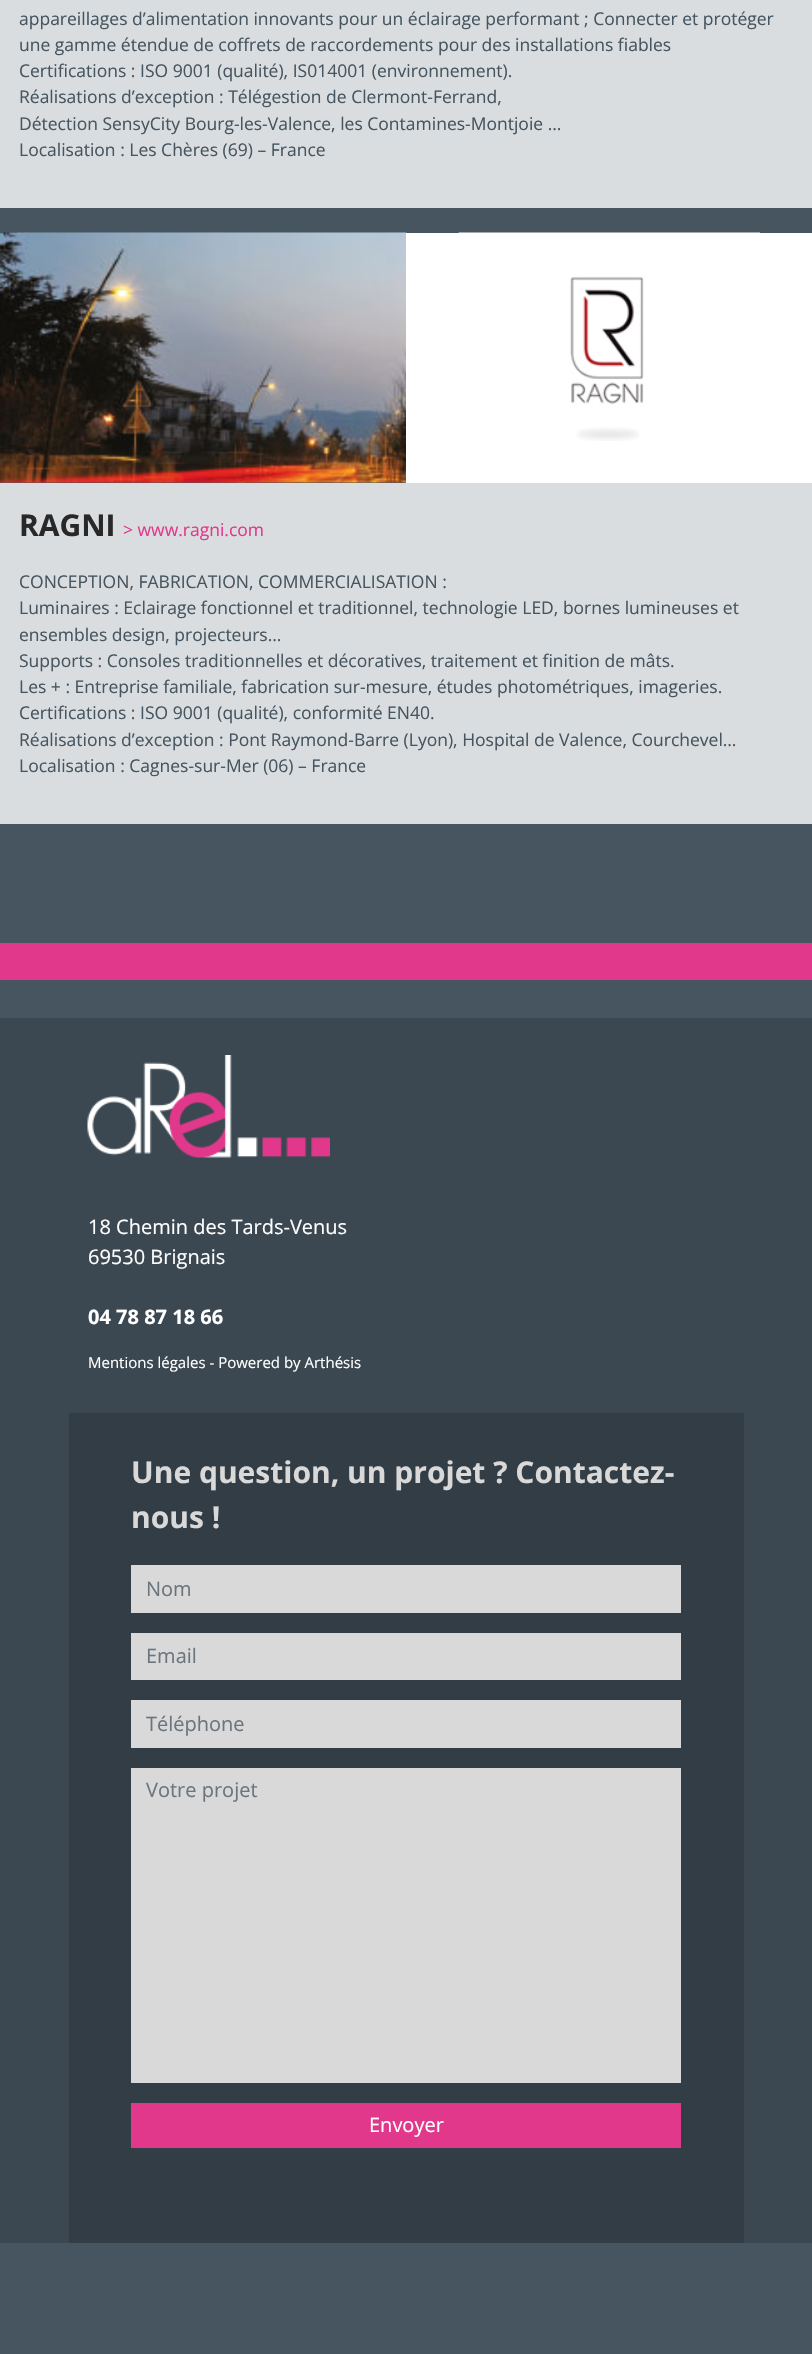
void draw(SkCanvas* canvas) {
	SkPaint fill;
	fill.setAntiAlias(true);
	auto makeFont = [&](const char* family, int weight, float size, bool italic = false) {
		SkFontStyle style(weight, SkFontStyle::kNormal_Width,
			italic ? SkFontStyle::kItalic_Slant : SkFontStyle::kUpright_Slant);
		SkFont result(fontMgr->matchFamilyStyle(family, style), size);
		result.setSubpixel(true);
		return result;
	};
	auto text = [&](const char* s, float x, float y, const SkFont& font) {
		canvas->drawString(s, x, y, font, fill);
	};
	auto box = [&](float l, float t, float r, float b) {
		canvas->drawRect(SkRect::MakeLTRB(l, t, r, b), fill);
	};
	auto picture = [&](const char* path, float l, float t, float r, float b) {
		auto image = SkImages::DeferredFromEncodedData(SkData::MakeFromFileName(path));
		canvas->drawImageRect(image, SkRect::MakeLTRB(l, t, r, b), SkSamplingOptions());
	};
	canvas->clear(0xFF46555F);
	fill.setColor(0xFFE1388B);
	box(0, 943, 812, 980);
	fill.setColor(0xFFDADDDF);
	box(0, 0, 812, 208);
	picture("image0.png", 0, 232, 407, 483);
	fill.setColor(0xFFFFFFFF);
	box(406, 233, 812, 483);
	picture("image1.png", 458, 232, 760, 441);
	fill.setColor(0xFFDADDDF);
	box(0, 483, 812, 824);
	fill.setColor(0xFF3C4851);
	box(0, 1018, 812, 2243);
	picture("image2.png", 87, 1055, 330, 1158);
	fill.setColor(0xFF333D45);
	box(69, 1413, 744, 2243);
	fill.setColor(0xFFD9D9D9);
	box(131, 1565, 681, 1613);
	box(131, 1633, 681, 1680);
	box(131, 1700, 681, 1748);
	box(131, 1768, 681, 2083);
	fill.setColor(0xFFE1388B);
	box(131, 2103, 681, 2148);
	auto font1 = makeFont("Open Sans", 400, 17.5f);
	fill.setColor(0xFF46555F);
	text("appareillages d’alimentation innovants pour un éclairage performant ; Connecter et protéger", 19, 25, font1);
	text("une gamme étendue de coffrets de raccordements pour des installations fiables", 19, 51, font1);
	text("Certifications : ISO 9001 (qualité), IS014001 (environnement).", 19, 77, font1);
	text("Réalisations d’exception : Télégestion de Clermont-Ferrand,", 19, 103, font1);
	text("Détection SensyCity Bourg-les-Valence, les Contamines-Montjoie …", 19, 130, font1);
	text("Localisation : Les Chères (69) – France", 19, 156, font1);
	auto font2 = makeFont("Open Sans", 700, 30);
	fill.setColor(0xFF282828);
	text("RAGNI", 19, 536, font2);
	fill.setColor(0xFFE1388B);
	text("> www.ragni.com", 123, 536, font1);
	fill.setColor(0xFF46555F);
	text("CONCEPTION, FABRICATION, COMMERCIALISATION :", 19, 588, font1);
	text("Luminaires : Eclairage fonctionnel et traditionnel, technologie LED, bornes lumineuses et", 19, 614, font1);
	text("ensembles design, projecteurs…", 19, 641, font1);
	text("Supports : Consoles traditionnelles et décoratives, traitement et finition de mâts.", 19, 667, font1);
	text("Les + : Entreprise familiale, fabrication sur-mesure, études photométriques, imageries.", 19, 693, font1);
	text("Certifications : ISO 9001 (qualité), conformité EN40.", 19, 719, font1);
	text("Réalisations d’exception : Pont Raymond-Barre (Lyon), Hospital de Valence, Courchevel…", 19, 746, font1);
	text("Localisation : Cagnes-sur-Mer (06) – France", 19, 772, font1);
	auto font3 = makeFont("Open Sans", 400, 20);
	fill.setColor(0xFFFFFFFF);
	text("18 Chemin des Tards-Venus", 88, 1234, font3);
	text("69530 Brignais", 88, 1264, font3);
	auto font4 = makeFont("Open Sans", 700, 20);
	text("04 78 87 18 66", 88, 1324, font4);
	auto font5 = makeFont("Open Sans", 400, 15);
	text("Mentions légales - Powered by Arthésis", 88, 1368, font5);
	fill.setColor(0xFFD9D9D9);
	text("Une question, un projet ? Contactez-", 131, 1483, font2);
	text("nous !", 131, 1528, font2);
	fill.setColor(0xFF6C757D);
	text("Nom", 146, 1596, font3);
	text("Email", 146, 1663, font3);
	text("Téléphone", 146, 1731, font3);
	text("Votre projet", 146, 1797, font3);
	fill.setColor(0xFFFFFFFF);
	text("Envoyer", 369, 2132, font3);
}
